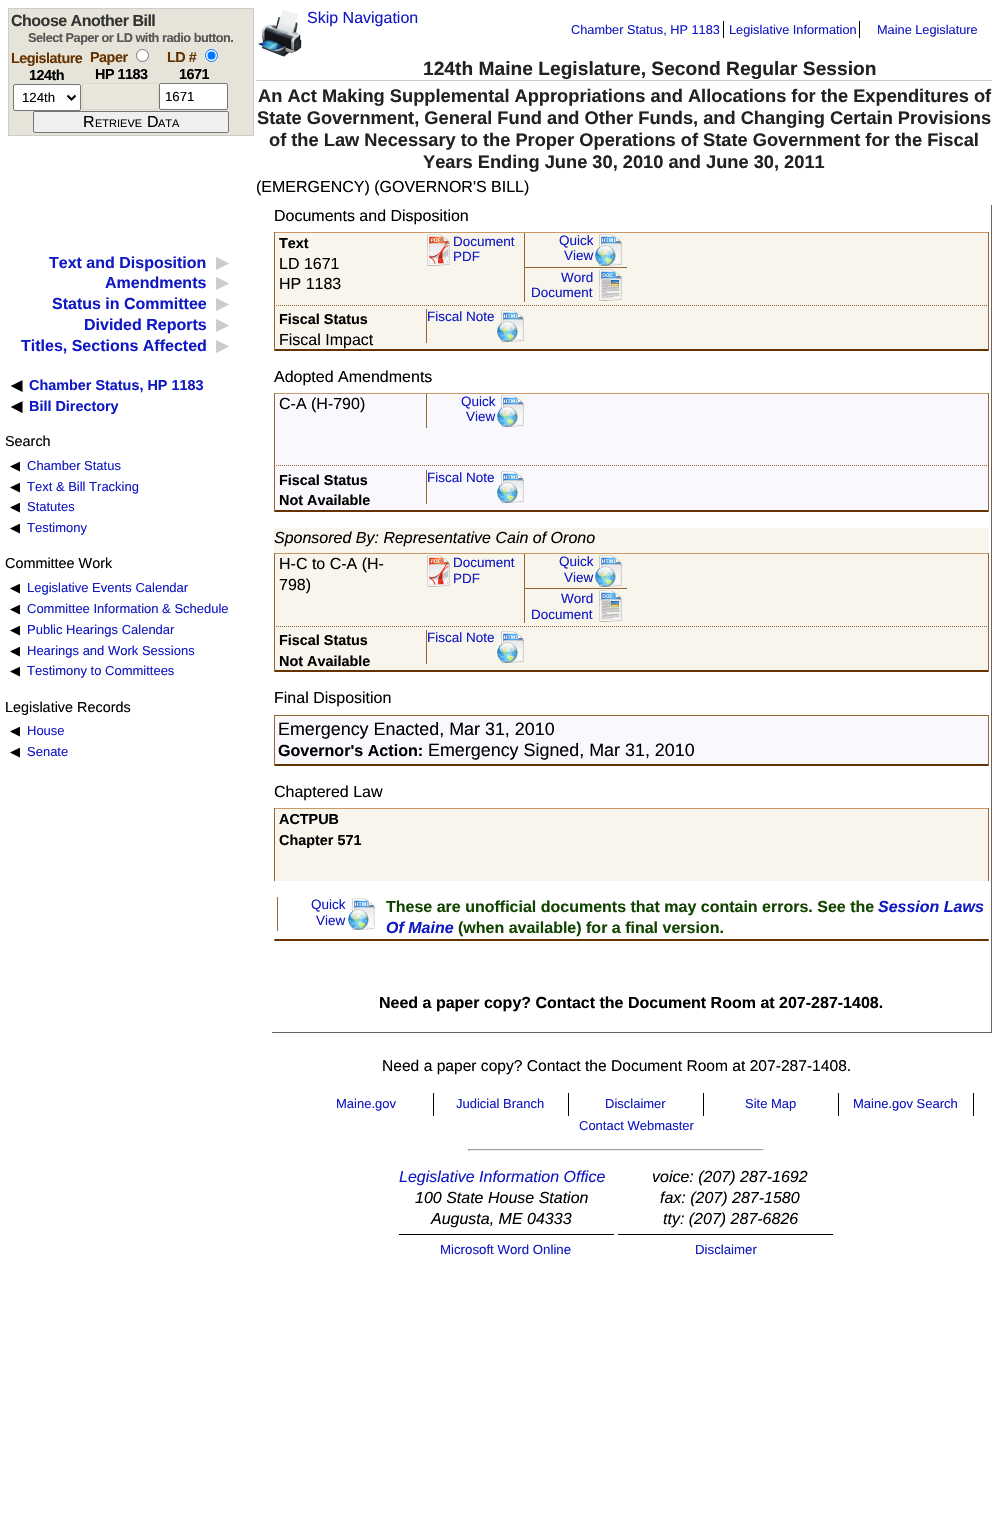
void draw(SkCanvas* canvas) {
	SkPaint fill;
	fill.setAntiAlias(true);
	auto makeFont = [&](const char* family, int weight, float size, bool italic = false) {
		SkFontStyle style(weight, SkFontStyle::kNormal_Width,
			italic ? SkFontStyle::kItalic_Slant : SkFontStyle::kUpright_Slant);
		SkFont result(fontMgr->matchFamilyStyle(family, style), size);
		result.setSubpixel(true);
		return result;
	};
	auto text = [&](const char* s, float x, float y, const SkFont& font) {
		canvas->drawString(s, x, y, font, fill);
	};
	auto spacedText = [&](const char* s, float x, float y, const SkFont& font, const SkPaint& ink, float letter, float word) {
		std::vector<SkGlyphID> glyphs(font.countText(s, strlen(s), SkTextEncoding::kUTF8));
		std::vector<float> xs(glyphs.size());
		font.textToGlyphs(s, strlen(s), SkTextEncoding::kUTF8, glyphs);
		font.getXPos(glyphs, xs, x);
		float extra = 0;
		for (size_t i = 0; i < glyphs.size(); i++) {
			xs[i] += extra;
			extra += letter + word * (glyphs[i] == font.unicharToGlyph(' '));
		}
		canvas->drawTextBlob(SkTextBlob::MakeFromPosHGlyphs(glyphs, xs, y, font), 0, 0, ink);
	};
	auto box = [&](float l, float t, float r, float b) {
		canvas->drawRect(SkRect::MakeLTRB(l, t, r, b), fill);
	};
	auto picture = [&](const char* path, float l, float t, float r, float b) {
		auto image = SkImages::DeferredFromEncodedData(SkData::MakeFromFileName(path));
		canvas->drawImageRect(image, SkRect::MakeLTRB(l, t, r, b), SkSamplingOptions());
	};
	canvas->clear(0xFFFFFFFF);
	fill.setColor(0xFFE6E3D8);
	canvas->drawRect(SkRect::MakeLTRB(8.5f, 8.5f, 253.5f, 135.5f), fill);
	fill.setStyle(SkPaint::kStroke_Style);
	fill.setStrokeWidth(1);
	fill.setColor(0xFFCCCCCC);
	canvas->drawRect(SkRect::MakeLTRB(8.5f, 8.5f, 253.5f, 135.5f), fill);
	fill.setStyle(SkPaint::kFill_Style);
	fill.setColor(0xFFFFFFFF);
	canvas->drawRoundRect(SkRect::MakeLTRB(13.5f, 84.5f, 80.5f, 110.5f), 1.5f, 1.5f, fill);
	fill.setStyle(SkPaint::kStroke_Style);
	fill.setColor(0xFF767676);
	canvas->drawRoundRect(SkRect::MakeLTRB(13.5f, 84.5f, 80.5f, 110.5f), 1.5f, 1.5f, fill);
	fill.setStrokeWidth(2);
	fill.setColor(0xFF000000);
	canvas->drawPath(SkPathBuilder().moveTo(67.5f, 95.5f).lineTo(71.5f, 99.5f).lineTo(75.5f, 95.5f).detach(), fill);
	fill.setStyle(SkPaint::kFill_Style);
	fill.setColor(0xFFFFFFFF);
	canvas->drawCircle(142.5f, 55.5f, 6, fill);
	fill.setStyle(SkPaint::kStroke_Style);
	fill.setStrokeWidth(1);
	fill.setColor(0xFF767676);
	canvas->drawCircle(142.5f, 55.5f, 6, fill);
	fill.setStyle(SkPaint::kFill_Style);
	fill.setColor(0xFFE9E6DC);
	canvas->drawRoundRect(SkRect::MakeLTRB(82.5f, 83.5f, 158.5f, 109.5f), 1.5f, 1.5f, fill);
	fill.setStyle(SkPaint::kStroke_Style);
	fill.setColor(0xFFDBD8CE);
	canvas->drawRoundRect(SkRect::MakeLTRB(82.5f, 83.5f, 158.5f, 109.5f), 1.5f, 1.5f, fill);
	fill.setStyle(SkPaint::kFill_Style);
	fill.setColor(0xFFFFFFFF);
	canvas->drawCircle(211.5f, 55.5f, 6, fill);
	fill.setStyle(SkPaint::kStroke_Style);
	fill.setColor(0xFF0075FF);
	canvas->drawCircle(211.5f, 55.5f, 6, fill);
	fill.setStyle(SkPaint::kFill_Style);
	canvas->drawCircle(211.5f, 55.5f, 4, fill);
	fill.setColor(0xFFFFFFFF);
	canvas->drawRoundRect(SkRect::MakeLTRB(159.5f, 83.5f, 227.5f, 109.5f), 1.5f, 1.5f, fill);
	fill.setStyle(SkPaint::kStroke_Style);
	fill.setColor(0xFF767676);
	canvas->drawRoundRect(SkRect::MakeLTRB(159.5f, 83.5f, 227.5f, 109.5f), 1.5f, 1.5f, fill);
	fill.setStyle(SkPaint::kFill_Style);
	fill.setColor(0xFFEFEFEF);
	canvas->drawRoundRect(SkRect::MakeLTRB(33.5f, 111.5f, 228.5f, 132.5f), 1.5f, 1.5f, fill);
	fill.setStyle(SkPaint::kStroke_Style);
	fill.setColor(0xFF767676);
	canvas->drawRoundRect(SkRect::MakeLTRB(33.5f, 111.5f, 228.5f, 132.5f), 1.5f, 1.5f, fill);
	picture("image0.png", 258, 10, 302, 57);
	fill.setStyle(SkPaint::kFill_Style);
	fill.setColor(0xFF000000);
	box(723, 21, 724, 38);
	box(859, 21, 860, 38);
	fill.setColor(0xFFCCCCCC);
	box(256, 80, 992, 81);
	fill.setColor(0xFF666666);
	box(991, 205, 992, 1033);
	box(272, 1032, 992, 1033);
	fill.setColor(0xFFF8F5ED);
	box(275, 233, 988, 305);
	fill.setColor(0xFFCC9966);
	box(274, 232, 989, 233);
	fill.setColor(0xFF996633);
	box(988, 232, 989, 305);
	box(274, 232, 275, 305);
	picture("image1.png", 427, 234, 450, 266);
	picture("image2.png", 595, 234, 622, 266);
	box(524, 233, 525, 267);
	picture("image3.png", 599, 269, 622, 301);
	box(524, 267, 627, 268);
	box(524, 267, 525, 302);
	fill.setColor(0xFFF8F5ED);
	box(274, 305, 989, 351);
	fill.setStyle(SkPaint::kStroke_Style);
	fill.setColor(0xFF996633);
	fill.setPathEffect(SkDashPathEffect::Make({{1, 1}}, 0));
	canvas->drawPath(SkPathBuilder().moveTo(274, 305.5f).lineTo(989, 305.5f).detach(), fill);
	fill.setPathEffect(nullptr);
	fill.setStyle(SkPaint::kFill_Style);
	canvas->drawPath(SkPathBuilder().moveTo(989, 305).lineTo(989, 351).lineTo(988, 349).lineTo(988, 306).close().detach(), fill);
	fill.setColor(0xFF663300);
	canvas->drawPath(SkPathBuilder().moveTo(989, 351).lineTo(274, 351).lineTo(275, 349).lineTo(988, 349).close().detach(), fill);
	fill.setColor(0xFF996633);
	canvas->drawPath(SkPathBuilder().moveTo(274, 351).lineTo(274, 305).lineTo(275, 306).lineTo(275, 349).close().detach(), fill);
	picture("image2.png", 497, 310, 524, 342);
	box(426, 309, 427, 343);
	fill.setColor(0xFFF8F8FD);
	box(274, 394, 989, 512);
	fill.setColor(0xFFCC9966);
	box(274, 393, 989, 394);
	fill.setColor(0xFF996633);
	box(988, 393, 989, 465);
	box(274, 393, 275, 465);
	picture("image4.png", 497, 395, 524, 427);
	box(426, 394, 427, 428);
	fill.setStyle(SkPaint::kStroke_Style);
	fill.setPathEffect(SkDashPathEffect::Make({{1, 1}}, 0));
	canvas->drawPath(SkPathBuilder().moveTo(274, 465.5f).lineTo(989, 465.5f).detach(), fill);
	fill.setPathEffect(nullptr);
	fill.setStyle(SkPaint::kFill_Style);
	canvas->drawPath(SkPathBuilder().moveTo(989, 465).lineTo(989, 512).lineTo(988, 510).lineTo(988, 466).close().detach(), fill);
	fill.setColor(0xFF663300);
	canvas->drawPath(SkPathBuilder().moveTo(989, 512).lineTo(274, 512).lineTo(275, 510).lineTo(988, 510).close().detach(), fill);
	fill.setColor(0xFF996633);
	canvas->drawPath(SkPathBuilder().moveTo(274, 512).lineTo(274, 465).lineTo(275, 466).lineTo(275, 510).close().detach(), fill);
	picture("image4.png", 497, 471, 524, 503);
	box(426, 470, 427, 504);
	fill.setColor(0xFFF8F5ED);
	box(274, 528, 989, 672);
	fill.setColor(0xFFCC9966);
	box(274, 553, 989, 554);
	fill.setColor(0xFF996633);
	box(988, 553, 989, 626);
	box(274, 553, 275, 626);
	picture("image1.png", 427, 555, 450, 587);
	picture("image2.png", 595, 555, 622, 587);
	box(524, 554, 525, 588);
	picture("image3.png", 599, 590, 622, 622);
	box(524, 588, 627, 589);
	box(524, 588, 525, 623);
	fill.setStyle(SkPaint::kStroke_Style);
	fill.setPathEffect(SkDashPathEffect::Make({{1, 1}}, 0));
	canvas->drawPath(SkPathBuilder().moveTo(274, 626.5f).lineTo(989, 626.5f).detach(), fill);
	fill.setPathEffect(nullptr);
	fill.setStyle(SkPaint::kFill_Style);
	canvas->drawPath(SkPathBuilder().moveTo(989, 626).lineTo(989, 672).lineTo(988, 670).lineTo(988, 627).close().detach(), fill);
	fill.setColor(0xFF663300);
	canvas->drawPath(SkPathBuilder().moveTo(989, 672).lineTo(274, 672).lineTo(275, 670).lineTo(988, 670).close().detach(), fill);
	fill.setColor(0xFF996633);
	canvas->drawPath(SkPathBuilder().moveTo(274, 672).lineTo(274, 626).lineTo(275, 627).lineTo(275, 670).close().detach(), fill);
	picture("image2.png", 497, 631, 524, 663);
	box(426, 630, 427, 664);
	fill.setColor(0xFFF8F8FD);
	box(275, 716, 988, 764);
	fill.setColor(0xFF996633);
	box(274, 715, 989, 716);
	canvas->drawPath(SkPathBuilder().moveTo(989, 715).lineTo(989, 766).lineTo(988, 764).lineTo(988, 716).close().detach(), fill);
	fill.setColor(0xFF663300);
	canvas->drawPath(SkPathBuilder().moveTo(989, 766).lineTo(274, 766).lineTo(275, 764).lineTo(988, 764).close().detach(), fill);
	fill.setColor(0xFF996633);
	canvas->drawPath(SkPathBuilder().moveTo(274, 766).lineTo(274, 715).lineTo(275, 716).lineTo(275, 764).close().detach(), fill);
	fill.setColor(0xFFF8F5ED);
	box(275, 809, 988, 881);
	fill.setColor(0xFFCC9966);
	box(274, 808, 989, 809);
	fill.setColor(0xFF996633);
	box(988, 808, 989, 881);
	box(274, 808, 275, 881);
	picture("image5.png", 348, 898, 375, 930);
	box(277, 897, 278, 931);
	canvas->drawPath(SkPathBuilder().moveTo(989, 939).lineTo(989, 941).lineTo(988, 939).close().detach(), fill);
	fill.setColor(0xFF663300);
	canvas->drawPath(SkPathBuilder().moveTo(989, 941).lineTo(274, 941).lineTo(275, 939).lineTo(988, 939).close().detach(), fill);
	fill.setColor(0xFF996633);
	canvas->drawPath(SkPathBuilder().moveTo(274, 941).lineTo(274, 939).lineTo(275, 939).close().detach(), fill);
	fill.setColor(0xFF000000);
	box(433, 1093, 434, 1116);
	box(568, 1093, 569, 1116);
	box(703, 1093, 704, 1116);
	box(838, 1093, 839, 1116);
	box(973, 1093, 974, 1116);
	fill.setColor(0xFF9F9F9F);
	box(468, 1149, 764, 1150);
	fill.setColor(0xFFEEEEEE);
	box(763, 1149, 764, 1151);
	box(468, 1150, 764, 1151);
	fill.setColor(0xFF9F9F9F);
	box(468, 1149, 469, 1151);
	fill.setColor(0xFF000000);
	box(399, 1234, 614, 1235);
	box(618, 1234, 833, 1235);
	auto font1 = makeFont("Liberation Sans", 700, 16);
	fill.setColor(0xFF333333);
	spacedText("Choose Another Bill", 11, 26, font1, fill, -0.5f, 0);
	auto font2 = makeFont("Liberation Sans", 700, 12.75f);
	fill.setColor(0xFF555555);
	spacedText("Select Paper or LD with radio button.", 28, 42, font2, fill, -0.5f, 0);
	auto font3 = makeFont("Liberation Sans", 700, 14.4f);
	fill.setColor(0xFF663300);
	spacedText("Legislature", 11, 63, font3, fill, -0.5f, 0);
	fill.setColor(0xFF000000);
	spacedText("124th", 29, 80, font3, fill, -0.5f, 0);
	auto font4 = makeFont("Liberation Sans", 400, 13.25f);
	text("124th", 22, 102, font4);
	fill.setColor(0xFF663300);
	spacedText("Paper", 90, 62, font3, fill, -0.5f, 0);
	fill.setColor(0xFF000000);
	spacedText("HP 1183", 95, 79, font3, fill, -0.5f, 0);
	fill.setColor(0xFF663300);
	spacedText("LD #", 167, 62, font3, fill, -0.5f, 0);
	fill.setColor(0xFF000000);
	spacedText("1671", 179, 79, font3, fill, -0.5f, 0);
	text("1671", 165, 101, font4);
	auto font5 = makeFont("Liberation Sans", 400, 16);
	text("R", 83, 127, font5);
	auto font6 = makeFont("Liberation Sans", 400, 11);
	text("ETRIEVE", 95, 127, font6);
	text("D", 147, 127, font5);
	text("ATA", 158, 127, font6);
	fill.setColor(0xFF1019C3);
	text("Skip Navigation", 307, 23, font5);
	auto font7 = makeFont("Liberation Sans", 400, 12.75f);
	text("Chamber Status, HP 1183", 571, 34, font7);
	text("Legislative Information", 729, 34, font7);
	text("Maine Legislature", 877, 34, font7);
	auto font8 = makeFont("Liberation Sans", 700, 19.2f);
	fill.setColor(0xFF222222);
	text("124th Maine Legislature, Second Regular Session", 423, 75, font8);
	auto font9 = makeFont("Liberation Sans", 700, 18.25f);
	text("An Act Making Supplemental Appropriations and Allocations for the Expenditures of", 258, 102, font9);
	text("State Government, General Fund and Other Funds, and Changing Certain Provisions", 257, 124, font9);
	text("of the Law Necessary to the Proper Operations of State Government for the Fiscal", 269, 146, font9);
	text("Years Ending June 30, 2010 and June 30, 2011", 423, 168, font9);
	fill.setColor(0xFF000000);
	text("(EMERGENCY) (GOVERNOR'S BILL)", 256, 192, font5);
	fill.setColor(0xFF1019C3);
	text("Text and Disposition", 49, 268, font1);
	auto font10 = makeFont("DejaVu Sans", 700, 16);
	fill.setColor(0xFFCCCCCC);
	text("▶", 216, 268, font10);
	fill.setColor(0xFF1019C3);
	text("Amendments", 105, 288, font1);
	fill.setColor(0xFFCCCCCC);
	text("▶", 216, 288, font10);
	fill.setColor(0xFF1019C3);
	text("Status in Committee", 52, 309, font1);
	fill.setColor(0xFFCCCCCC);
	text("▶", 216, 309, font10);
	fill.setColor(0xFF1019C3);
	text("Divided Reports", 84, 330, font1);
	fill.setColor(0xFFCCCCCC);
	text("▶", 216, 330, font10);
	fill.setColor(0xFF1019C3);
	text("Titles, Sections Affected", 21, 351, font1);
	fill.setColor(0xFFCCCCCC);
	text("▶", 216, 351, font10);
	auto font11 = makeFont("DejaVu Sans", 700, 14.4f);
	fill.setColor(0xFF000000);
	text("◀", 11, 390, font11);
	fill.setColor(0xFF1019C3);
	text("Chamber Status, HP 1183", 29, 390, font3);
	fill.setColor(0xFF000000);
	text("◀", 11, 411, font11);
	fill.setColor(0xFF1019C3);
	text("Bill Directory", 29, 411, font3);
	auto font12 = makeFont("Liberation Sans", 400, 14.4f);
	fill.setColor(0xFF000000);
	text("Search", 5, 446, font12);
	auto font13 = makeFont("DejaVu Sans", 400, 13);
	text("◀", 10, 470, font13);
	auto font14 = makeFont("Liberation Sans", 400, 13);
	fill.setColor(0xFF1019C3);
	text("Chamber Status", 27, 470, font14);
	fill.setColor(0xFF000000);
	text("◀", 10, 491, font13);
	fill.setColor(0xFF1019C3);
	text("Text & Bill Tracking", 27, 491, font14);
	fill.setColor(0xFF000000);
	text("◀", 10, 511, font13);
	fill.setColor(0xFF1019C3);
	text("Statutes", 27, 511, font14);
	fill.setColor(0xFF000000);
	text("◀", 10, 532, font13);
	fill.setColor(0xFF1019C3);
	text("Testimony", 27, 532, font14);
	fill.setColor(0xFF000000);
	text("Committee Work", 5, 568, font12);
	text("◀", 10, 592, font13);
	fill.setColor(0xFF1019C3);
	text("Legislative Events Calendar", 27, 592, font14);
	fill.setColor(0xFF000000);
	text("◀", 10, 613, font13);
	fill.setColor(0xFF1019C3);
	text("Committee Information & Schedule", 27, 613, font14);
	fill.setColor(0xFF000000);
	text("◀", 10, 634, font13);
	fill.setColor(0xFF1019C3);
	text("Public Hearings Calendar", 27, 634, font14);
	fill.setColor(0xFF000000);
	text("◀", 10, 655, font13);
	fill.setColor(0xFF1019C3);
	text("Hearings and Work Sessions", 27, 655, font14);
	fill.setColor(0xFF000000);
	text("◀", 10, 675, font13);
	fill.setColor(0xFF1019C3);
	text("Testimony to Committees", 27, 675, font14);
	fill.setColor(0xFF000000);
	text("Legislative Records", 5, 712, font12);
	text("◀", 10, 735, font13);
	fill.setColor(0xFF1019C3);
	text("House", 27, 735, font14);
	fill.setColor(0xFF000000);
	text("◀", 10, 756, font13);
	fill.setColor(0xFF1019C3);
	text("Senate", 27, 756, font14);
	fill.setColor(0xFF000000);
	text("Documents and Disposition", 274, 221, font5);
	text("Text", 279, 248, font3);
	text("LD 1671", 279, 269, font5);
	text("HP 1183", 279, 289, font5);
	auto font15 = makeFont("Liberation Sans", 400, 13.5f);
	fill.setColor(0xFF1019C3);
	text("Document", 453, 246, font15);
	text("PDF", 453, 261, font15);
	text("Quick", 559, 245, font15);
	text("View", 564, 260, font15);
	text("Word", 561, 282, font15);
	text("Document", 531, 297, font15);
	fill.setColor(0xFF000000);
	text("Fiscal Status", 279, 324, font3);
	text("Fiscal Impact", 279, 345, font5);
	fill.setColor(0xFF1019C3);
	text("Fiscal Note", 427, 321, font15);
	fill.setColor(0xFF000000);
	text("Adopted Amendments", 274, 382, font5);
	text("C-A (H-790)", 279, 409, font5);
	fill.setColor(0xFF1019C3);
	text("Quick", 461, 406, font15);
	text("View", 466, 421, font15);
	fill.setColor(0xFF000000);
	text("Fiscal Status", 279, 485, font3);
	text("Not Available", 279, 505, font3);
	fill.setColor(0xFF1019C3);
	text("Fiscal Note", 427, 482, font15);
	auto font16 = makeFont("Liberation Sans", 400, 16, true);
	fill.setColor(0xFF000000);
	text("Sponsored By: Representative Cain of Orono", 274, 543, font16);
	text("H-C to C-A (H-", 279, 569, font5);
	text("798)", 279, 590, font5);
	fill.setColor(0xFF1019C3);
	text("Document", 453, 567, font15);
	text("PDF", 453, 583, font15);
	text("Quick", 559, 566, font15);
	text("View", 564, 582, font15);
	text("Word", 561, 603, font15);
	text("Document", 531, 619, font15);
	fill.setColor(0xFF000000);
	text("Fiscal Status", 279, 645, font3);
	text("Not Available", 279, 666, font3);
	fill.setColor(0xFF1019C3);
	text("Fiscal Note", 427, 642, font15);
	fill.setColor(0xFF000000);
	text("Final Disposition", 274, 703, font5);
	auto font17 = makeFont("Liberation Sans", 400, 17.9f);
	text("Emergency Enacted, Mar 31, 2010", 278, 735, font17);
	auto font18 = makeFont("Liberation Sans", 700, 16.1f);
	text("Governor's Action:", 278, 756, font18);
	text("Emergency Signed, Mar 31, 2010", 428, 756, font17);
	text("Chaptered Law", 274, 797, font5);
	text("ACTPUB", 279, 824, font3);
	text("Chapter 571", 279, 845, font3);
	fill.setColor(0xFF1019C3);
	text("Quick", 311, 909, font15);
	text("View", 316, 925, font15);
	fill.setColor(0xFF114400);
	text("These are unofficial documents that may contain errors. See the", 386, 912, font1);
	auto font19 = makeFont("Liberation Sans", 700, 16, true);
	fill.setColor(0xFF1019C3);
	text("Session Laws", 878, 912, font19);
	text("Of Maine", 386, 933, font19);
	fill.setColor(0xFF114400);
	text("(when available) for a final version.", 458, 933, font1);
	fill.setColor(0xFF000000);
	text("Need a paper copy? Contact the Document Room at 207-287-1408.", 379, 1008, font1);
	auto font20 = makeFont("Liberation Sans", 400, 15.6f);
	text("Need a paper copy? Contact the Document Room at 207-287-1408.", 382, 1071, font20);
	fill.setColor(0xFF1019C3);
	text("Maine.gov", 336, 1108, font14);
	text("Judicial Branch", 456, 1108, font14);
	text("Disclaimer", 605, 1108, font14);
	text("Site Map", 745, 1108, font14);
	text("Maine.gov Search", 853, 1108, font14);
	text("Contact Webmaster", 579, 1130, font14);
	text("Legislative Information Office", 399, 1182, font16);
	fill.setColor(0xFF000000);
	text("100 State House Station", 415, 1203, font16);
	text("Augusta, ME 04333", 431, 1224, font16);
	text("voice: (207) 287-1692", 652, 1182, font16);
	text("fax: (207) 287-1580", 660, 1203, font16);
	text("tty: (207) 287-6826", 663, 1224, font16);
	fill.setColor(0xFF1019C3);
	text("Microsoft Word Online", 440, 1254, font4);
	text("Disclaimer", 695, 1254, font4);
}
